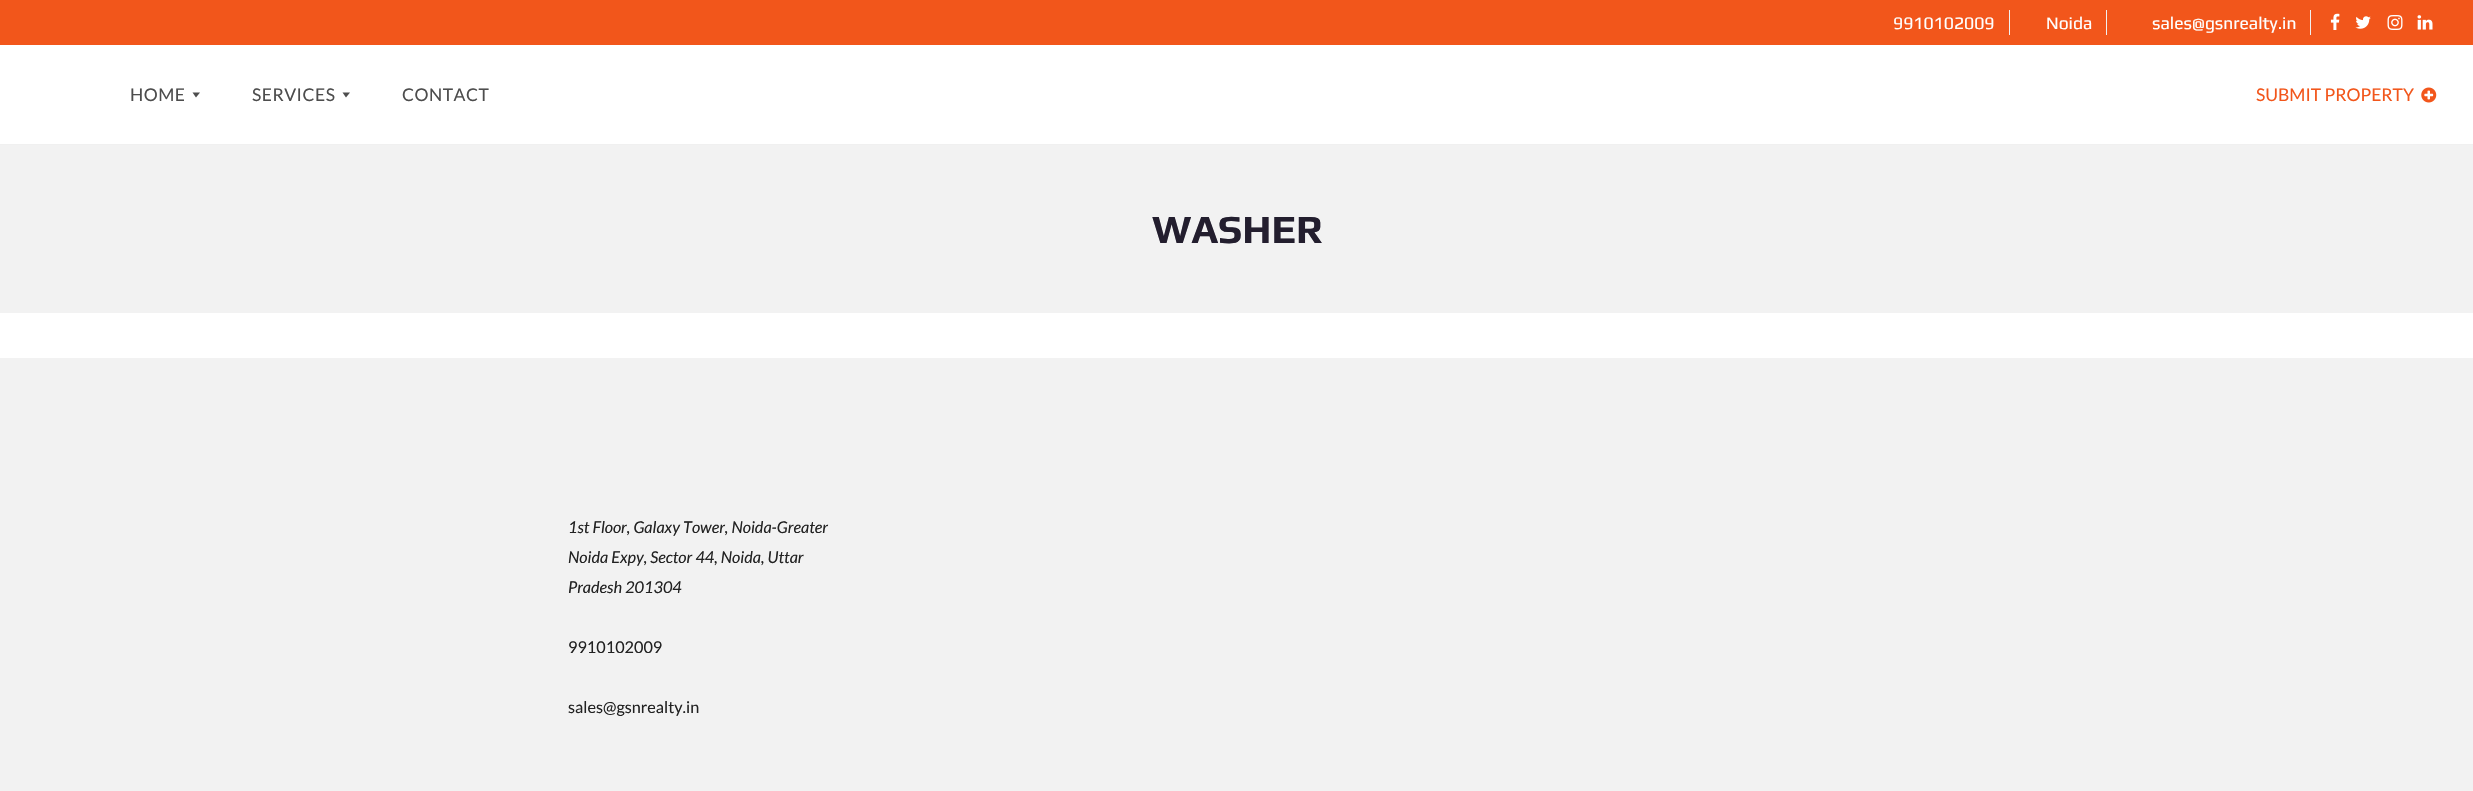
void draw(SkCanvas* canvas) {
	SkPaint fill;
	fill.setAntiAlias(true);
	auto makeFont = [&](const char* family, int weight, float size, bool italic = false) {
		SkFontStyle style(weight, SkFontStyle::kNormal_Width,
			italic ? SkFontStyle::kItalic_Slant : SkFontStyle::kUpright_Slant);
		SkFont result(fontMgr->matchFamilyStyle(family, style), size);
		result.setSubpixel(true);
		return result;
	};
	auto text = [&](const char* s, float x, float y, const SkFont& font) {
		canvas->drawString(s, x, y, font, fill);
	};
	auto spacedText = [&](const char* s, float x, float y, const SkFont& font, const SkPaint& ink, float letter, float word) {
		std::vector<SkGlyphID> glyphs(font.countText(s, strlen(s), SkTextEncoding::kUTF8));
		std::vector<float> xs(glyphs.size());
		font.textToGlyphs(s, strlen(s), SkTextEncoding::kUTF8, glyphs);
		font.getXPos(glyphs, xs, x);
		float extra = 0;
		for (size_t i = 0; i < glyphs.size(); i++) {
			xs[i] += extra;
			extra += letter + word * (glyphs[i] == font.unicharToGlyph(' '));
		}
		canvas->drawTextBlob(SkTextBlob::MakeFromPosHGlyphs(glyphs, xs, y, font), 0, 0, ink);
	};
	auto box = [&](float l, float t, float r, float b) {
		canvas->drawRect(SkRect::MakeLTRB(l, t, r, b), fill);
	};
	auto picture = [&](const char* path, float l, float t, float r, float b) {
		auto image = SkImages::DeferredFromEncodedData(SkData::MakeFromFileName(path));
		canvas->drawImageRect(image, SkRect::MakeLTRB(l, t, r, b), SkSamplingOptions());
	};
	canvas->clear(0xFFFFFFFF);
	fill.setColor(0xFFF2561B);
	box(0, 0, 2473, 45);
	fill.setColor(0xFFF0F0F0);
	box(2009, 10, 2010, 35);
	box(2106, 10, 2107, 35);
	box(2310, 10, 2311, 35);
	picture("image0.png", 2330, 13, 2340, 30);
	picture("image1.png", 2355, 16, 2371, 29);
	picture("image2.png", 2387, 15, 2403, 30);
	picture("image3.png", 2417, 15, 2433, 30);
	fill.setColor(0xFF4D4D4D);
	canvas->drawPath(SkPathBuilder().moveTo(192.5f, 92.5f).lineTo(200, 92.5f).lineTo(196, 97.5f).close().detach(), fill);
	canvas->drawPath(SkPathBuilder().moveTo(342.5f, 92.5f).lineTo(350, 92.5f).lineTo(346, 97.5f).close().detach(), fill);
	picture("image4.png", 2421, 87, 2437, 103);
	fill.setColor(0xFFF0F0F0);
	box(0, 144, 2473, 145);
	fill.setColor(0xFFF2F2F2);
	box(0, 145, 2473, 313);
	box(0, 358, 2473, 791);
	auto font1 = makeFont("Play", 400, 17.5f);
	fill.setColor(0xFFFFFFFF);
	text("9910102009", 1893, 29, font1);
	text("Noida", 2046, 29, font1);
	text("sales@gsnrealty.in", 2152, 29, font1);
	auto font2 = makeFont("Lato", 400, 17.5f);
	fill.setColor(0xFF4D4D4D);
	spacedText("HOME", 130, 101, font2, fill, 0.5f, 0);
	spacedText("SERVICES", 252, 101, font2, fill, 0.5f, 0);
	spacedText("CONTACT", 402, 101, font2, fill, 0.5f, 0);
	fill.setColor(0xFFF2561B);
	text("SUBMIT PROPERTY", 2256, 101, font2);
	auto font3 = makeFont("Play", 700, 40);
	fill.setColor(0xFF231E2E);
	text("WASHER", 1152, 243, font3);
	auto font4 = makeFont("Lato", 400, 16.25f, true);
	fill.setColor(0xFF222222);
	text("1st Floor, Galaxy Tower, Noida-Greater", 568, 533, font4);
	text("Noida Expy, Sector 44, Noida, Uttar", 568, 563, font4);
	text("Pradesh 201304", 568, 593, font4);
	auto font5 = makeFont("Lato", 400, 16.25f);
	text("9910102009", 568, 653, font5);
	text("sales@gsnrealty.in", 568, 713, font5);
}
